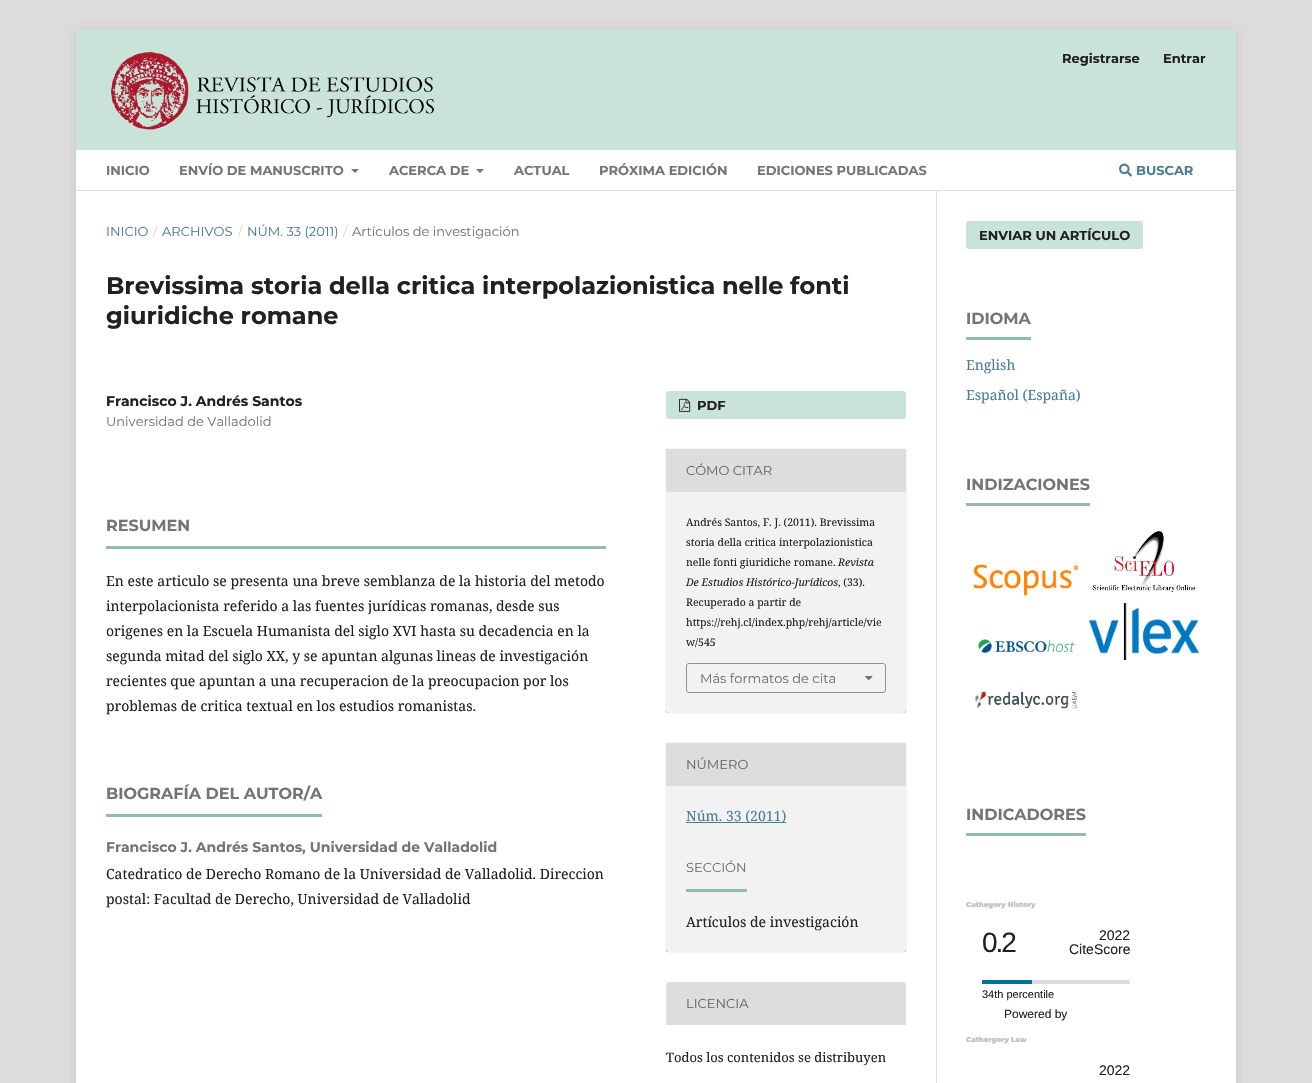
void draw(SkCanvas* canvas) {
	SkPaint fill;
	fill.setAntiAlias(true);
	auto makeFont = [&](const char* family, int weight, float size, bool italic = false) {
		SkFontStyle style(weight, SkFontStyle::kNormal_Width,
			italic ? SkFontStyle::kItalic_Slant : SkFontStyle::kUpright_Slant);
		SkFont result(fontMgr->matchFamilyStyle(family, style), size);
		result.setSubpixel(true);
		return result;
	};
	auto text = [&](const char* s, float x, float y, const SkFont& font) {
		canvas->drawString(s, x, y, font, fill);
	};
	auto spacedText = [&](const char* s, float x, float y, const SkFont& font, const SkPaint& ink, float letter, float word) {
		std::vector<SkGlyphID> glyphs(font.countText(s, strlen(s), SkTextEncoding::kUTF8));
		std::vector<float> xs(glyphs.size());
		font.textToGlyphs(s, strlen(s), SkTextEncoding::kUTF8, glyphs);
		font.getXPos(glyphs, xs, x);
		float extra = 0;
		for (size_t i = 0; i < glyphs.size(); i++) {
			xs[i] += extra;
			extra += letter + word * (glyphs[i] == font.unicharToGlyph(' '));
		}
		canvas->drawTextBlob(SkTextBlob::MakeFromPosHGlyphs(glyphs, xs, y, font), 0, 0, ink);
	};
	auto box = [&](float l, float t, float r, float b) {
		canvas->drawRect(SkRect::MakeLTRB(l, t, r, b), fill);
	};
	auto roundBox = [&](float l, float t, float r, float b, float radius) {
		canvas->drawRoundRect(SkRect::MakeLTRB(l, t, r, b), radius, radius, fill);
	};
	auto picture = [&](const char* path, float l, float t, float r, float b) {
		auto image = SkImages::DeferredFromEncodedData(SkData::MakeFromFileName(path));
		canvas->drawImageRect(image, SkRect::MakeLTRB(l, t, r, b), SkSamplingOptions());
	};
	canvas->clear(0xFFDDDDDD);
	fill.setColor(0x1A000000);
	fill.setMaskFilter(SkMaskFilter::MakeBlur(kNormal_SkBlurStyle, 5));
	canvas->drawRect(SkRect::MakeLTRB(76, 30, 1236, 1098), fill);
	fill.setMaskFilter(nullptr);
	fill.setColor(0xFFFFFFFF);
	box(76, 191, 1236, 1083);
	fill.setColor(0xFFC9E3D8);
	box(76, 30, 1236, 150);
	fill.setColor(0xFFDDDDDD);
	box(76, 190, 1236, 191);
	fill.setColor(0xFFFFFFFF);
	box(76, 150, 1236, 190);
	fill.setColor(0xFF757575);
	canvas->drawPath(SkPathBuilder().moveTo(351, 169).lineTo(359, 169).lineTo(355, 173).close().detach(), fill);
	canvas->drawPath(SkPathBuilder().moveTo(476, 169).lineTo(484, 169).lineTo(480, 173).close().detach(), fill);
	picture("image0.png", 1119, 163, 1132, 177);
	picture("image1.png", 111, 52, 434, 130);
	fill.setColor(0xFF94BCAE);
	box(106, 546, 606, 549);
	box(106, 814, 322, 817);
	fill.setColor(0xFFC9E3D8);
	roundBox(666, 391, 906, 419, 3);
	picture("image2.png", 679, 398, 691, 412);
	canvas->save();
	canvas->clipPath(SkPathBuilder(SkPathFillType::kEvenOdd).moveTo(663, 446).lineTo(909, 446).lineTo(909, 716).lineTo(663, 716).close().moveTo(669, 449).lineTo(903, 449).cubicTo(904.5f, 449, 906, 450.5f, 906, 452).lineTo(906, 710).cubicTo(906, 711.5f, 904.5f, 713, 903, 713).lineTo(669, 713).cubicTo(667.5f, 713, 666, 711.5f, 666, 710).lineTo(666, 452).cubicTo(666, 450.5f, 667.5f, 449, 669, 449).close().detach(), true);
	fill.setColor(0x66000000);
	fill.setMaskFilter(SkMaskFilter::MakeBlur(kNormal_SkBlurStyle, 0.5f));
	canvas->drawRoundRect(SkRect::MakeLTRB(666, 449, 906, 713), 3, 3, fill);
	fill.setMaskFilter(nullptr);
	canvas->restore();
	fill.setColor(0x0D000000);
	box(666, 449, 906, 713);
	fill.setColor(0xFFDDDDDD);
	canvas->drawPath(SkPathBuilder().moveTo(669, 449).lineTo(903, 449).cubicTo(904.5f, 449, 906, 450.5f, 906, 452).lineTo(906, 492).lineTo(666, 492).lineTo(666, 452).cubicTo(666, 450.5f, 667.5f, 449, 669, 449).close().detach(), fill);
	fill.setStyle(SkPaint::kStroke_Style);
	fill.setStrokeWidth(1);
	fill.setColor(0xFF919191);
	canvas->drawRoundRect(SkRect::MakeLTRB(686.5f, 663.5f, 885.5f, 692.5f), 2.5f, 2.5f, fill);
	picture("image3.png", 865, 676, 873, 681);
	canvas->save();
	canvas->clipPath(SkPathBuilder(SkPathFillType::kEvenOdd).moveTo(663, 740).lineTo(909, 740).lineTo(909, 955).lineTo(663, 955).close().moveTo(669, 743).lineTo(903, 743).cubicTo(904.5f, 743, 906, 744.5f, 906, 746).lineTo(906, 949).cubicTo(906, 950.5f, 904.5f, 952, 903, 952).lineTo(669, 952).cubicTo(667.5f, 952, 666, 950.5f, 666, 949).lineTo(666, 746).cubicTo(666, 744.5f, 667.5f, 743, 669, 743).close().detach(), true);
	fill.setStyle(SkPaint::kFill_Style);
	fill.setColor(0x66000000);
	fill.setMaskFilter(SkMaskFilter::MakeBlur(kNormal_SkBlurStyle, 0.5f));
	canvas->drawRoundRect(SkRect::MakeLTRB(666, 743, 906, 952), 3, 3, fill);
	fill.setMaskFilter(nullptr);
	canvas->restore();
	fill.setColor(0x0D000000);
	box(666, 743, 906, 952);
	fill.setColor(0xFFDDDDDD);
	canvas->drawPath(SkPathBuilder().moveTo(669, 743).lineTo(903, 743).cubicTo(904.5f, 743, 906, 744.5f, 906, 746).lineTo(906, 786).lineTo(666, 786).lineTo(666, 746).cubicTo(666, 744.5f, 667.5f, 743, 669, 743).close().detach(), fill);
	fill.setColor(0xFF4B7D92);
	box(686, 822, 786, 823);
	fill.setColor(0xFF94BCAE);
	box(686, 889, 747, 892);
	fill.setColor(0xFFDDDDDD);
	canvas->drawPath(SkPathBuilder().moveTo(669, 982).lineTo(903, 982).cubicTo(904.5f, 982, 906, 983.5f, 906, 985).lineTo(906, 1025).lineTo(666, 1025).lineTo(666, 985).cubicTo(666, 983.5f, 667.5f, 982, 669, 982).close().detach(), fill);
	box(936, 191, 937, 1083);
	fill.setColor(0xFFC9E3D8);
	roundBox(966, 221, 1143, 249, 3);
	fill.setColor(0xFF94BCAE);
	box(966, 337, 1031, 340);
	box(966, 503, 1090, 506);
	picture("image4.png", 973, 564, 1079, 596);
	picture("image5.png", 1092, 531, 1196, 592);
	picture("image6.png", 978, 639, 1075, 653);
	picture("image7.png", 1089, 603, 1199, 660);
	picture("image8.png", 975, 686, 1077, 709);
	box(966, 833, 1086, 836);
	fill.setColor(0xFFDCDCDC);
	box(1032, 980, 1130, 984);
	fill.setColor(0xFF007398);
	box(982, 980, 1032, 984);
	auto font1 = makeFont("Montserrat", 700, 13);
	fill.setColor(0xFF212121);
	text("Registrarse", 1062, 63, font1);
	text("Entrar", 1163, 63, font1);
	fill.setColor(0xFF757575);
	text("INICIO", 106, 175, font1);
	text("ENVÍO DE MANUSCRITO", 179, 175, font1);
	text("ACERCA DE", 389, 175, font1);
	text("ACTUAL", 514, 175, font1);
	text("PRÓXIMA EDICIÓN", 599, 175, font1);
	text("EDICIONES PUBLICADAS", 757, 175, font1);
	fill.setColor(0xFF4B7D92);
	text("BUSCAR", 1136, 175, font1);
	auto font2 = makeFont("Montserrat", 400, 13);
	text("INICIO", 106, 236, font2);
	fill.setColor(0xFFD6D6D6);
	text("/", 153, 236, font2);
	fill.setColor(0xFF4B7D92);
	text("ARCHIVOS", 162, 236, font2);
	fill.setColor(0xFFD6D6D6);
	text("/", 238, 236, font2);
	fill.setColor(0xFF4B7D92);
	text("NÚM. 33 (2011)", 247, 236, font2);
	fill.setColor(0xFFD6D6D6);
	text("/", 343, 236, font2);
	fill.setColor(0xFF757575);
	text("Artículos de investigación", 352, 236, font2);
	auto font3 = makeFont("Montserrat", 700, 24);
	fill.setColor(0xFF212121);
	text("Brevissima storia della critica interpolazionistica nelle fonti", 106, 294, font3);
	text("giuridiche romane", 106, 324, font3);
	auto font4 = makeFont("Montserrat", 700, 14);
	text("Francisco J. Andrés Santos", 106, 406, font4);
	fill.setColor(0xFF757575);
	text("Universidad de Valladolid", 106, 426, font2);
	auto font5 = makeFont("Montserrat", 700, 16);
	text("RESUMEN", 106, 531, font5);
	auto font6 = makeFont("Noto Serif", 400, 14);
	fill.setColor(0xFF212121);
	text("En este articulo se presenta una breve semblanza de la historia del metodo", 106, 586, font6);
	text("interpolacionista referido a las fuentes jurídicas romanas, desde sus", 106, 611, font6);
	text("origenes en la Escuela Humanista del siglo XVI hasta su decadencia en la", 106, 636, font6);
	text("segunda mitad del siglo XX, y se apuntan algunas lineas de investigación", 106, 661, font6);
	text("recientes que apuntan a una recuperacion de la preocupacion por los", 106, 686, font6);
	text("problemas de critica textual en los estudios romanistas.", 106, 711, font6);
	fill.setColor(0xFF757575);
	text("BIOGRAFÍA DEL AUTOR/A", 106, 799, font5);
	text("Francisco J. Andrés Santos, Universidad de Valladolid", 106, 852, font4);
	fill.setColor(0xFF212121);
	text("Catedratico de Derecho Romano de la Universidad de Valladolid. Direccion", 106, 879, font6);
	text("postal: Facultad de Derecho, Universidad de Valladolid", 106, 904, font6);
	text("PDF", 697, 410, font1);
	fill.setColor(0xFF666666);
	text("CÓMO CITAR", 686, 475, font2);
	auto font7 = makeFont("Noto Serif", 400, 10.5f);
	fill.setColor(0xFF212121);
	text("Andrés Santos, F. J. (2011). Brevissima", 686, 526, font7);
	text("storia della critica interpolazionistica", 686, 546, font7);
	text("nelle fonti giuridiche romane.", 686, 566, font7);
	auto font8 = makeFont("Noto Serif", 400, 10.5f, true);
	text("Revista", 838, 566, font8);
	text("De Estudios Histórico-Jurídicos", 686, 586, font8);
	text(", (33).", 838, 586, font7);
	text("Recuperado a partir de", 686, 606, font7);
	text("https://rehj.cl/index.php/rehj/article/vie", 686, 626, font7);
	text("w/545", 686, 646, font7);
	fill.setColor(0xFF6F6F6F);
	text("Más formatos de cita", 700, 683, font2);
	fill.setColor(0xFF666666);
	text("NÚMERO", 686, 769, font2);
	fill.setColor(0xFF4B7D92);
	text("Núm. 33 (2011)", 686, 821, font6);
	fill.setColor(0xFF6F6F6F);
	text("SECCIÓN", 686, 872, font2);
	fill.setColor(0xFF212121);
	text("Artículos de investigación", 686, 927, font6);
	fill.setColor(0xFF666666);
	text("LICENCIA", 686, 1008, font2);
	auto font9 = makeFont("Noto Serif", 400, 13);
	fill.setColor(0xFF212121);
	text("Todos los contenidos se distribuyen", 666, 1062, font9);
	text("ENVIAR UN ARTÍCULO", 979, 240, font1);
	fill.setColor(0xFF757575);
	text("IDIOMA", 966, 324, font5);
	fill.setColor(0xFF4B7D92);
	text("English", 966, 370, font6);
	text("Español (España)", 966, 400, font6);
	fill.setColor(0xFF757575);
	text("INDIZACIONES", 966, 490, font5);
	text("INDICADORES", 966, 820, font5);
	auto font10 = makeFont("Montserrat", 900, 7);
	fill.setColor(0xFFC4C1C0);
	text("Cathegory History", 966, 907, font10);
	auto font11 = makeFont("Liberation Sans", 400, 28);
	fill.setColor(0xFF212121);
	spacedText("0.2", 982, 952, font11, fill, -2, 0);
	auto font12 = makeFont("Liberation Sans", 400, 14);
	text("2022", 1099, 940, font12);
	text("CiteScore", 1069, 954, font12);
	auto font13 = makeFont("Liberation Sans", 400, 11);
	text("34th percentile", 982, 998, font13);
	auto font14 = makeFont("Liberation Sans", 400, 12);
	text("Powered by", 1004, 1018, font14);
	fill.setColor(0xFFC4C1C0);
	text("Cathergory Law", 966, 1042, font10);
	fill.setColor(0xFF212121);
	text("2022", 1099, 1075, font12);
}
